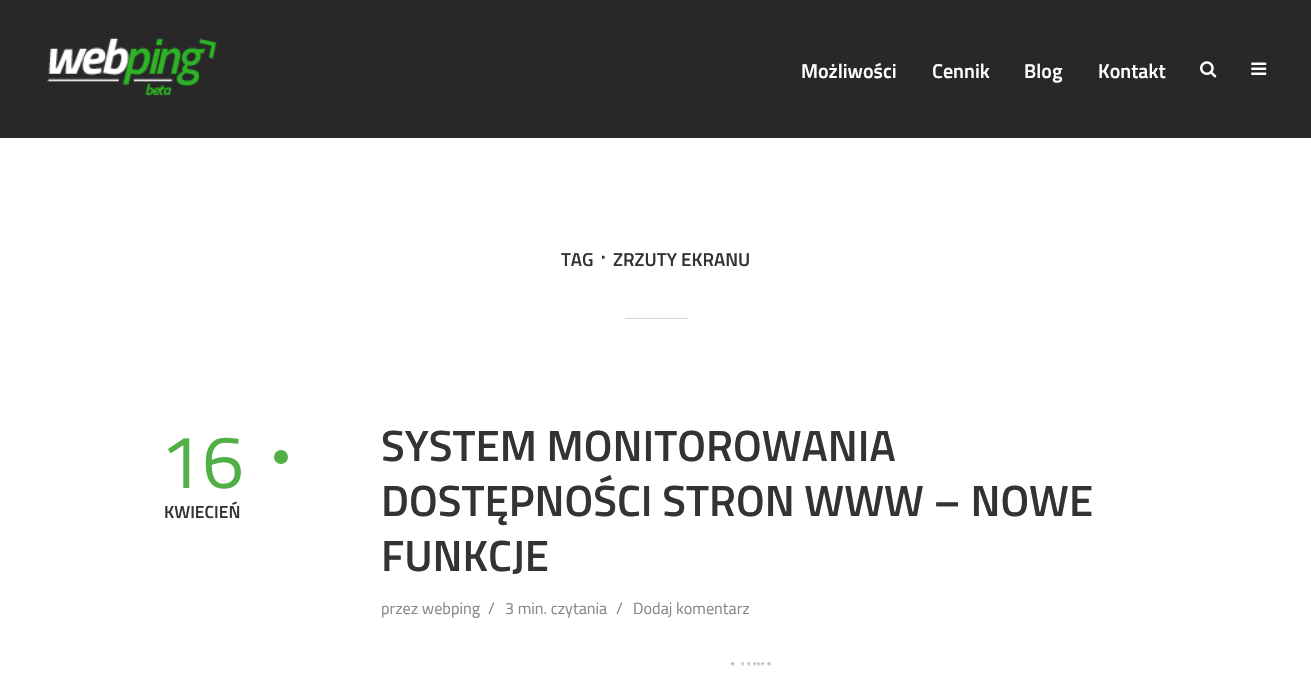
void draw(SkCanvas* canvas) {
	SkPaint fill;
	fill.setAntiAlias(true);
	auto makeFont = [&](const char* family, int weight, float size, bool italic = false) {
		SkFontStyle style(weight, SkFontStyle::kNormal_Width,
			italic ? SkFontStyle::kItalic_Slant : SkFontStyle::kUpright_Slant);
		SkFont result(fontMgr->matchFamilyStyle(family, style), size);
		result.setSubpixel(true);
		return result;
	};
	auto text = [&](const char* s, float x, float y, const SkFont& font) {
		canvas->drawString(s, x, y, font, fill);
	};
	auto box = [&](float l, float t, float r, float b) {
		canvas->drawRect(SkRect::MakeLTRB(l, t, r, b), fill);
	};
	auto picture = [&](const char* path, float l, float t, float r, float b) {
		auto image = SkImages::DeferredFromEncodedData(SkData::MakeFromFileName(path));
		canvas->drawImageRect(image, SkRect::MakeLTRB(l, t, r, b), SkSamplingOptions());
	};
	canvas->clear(0xFFFFFFFF);
	fill.setColor(0xFF282828);
	box(0, 0, 1311, 138);
	picture("image0.png", 47, 38, 217, 96);
	picture("image1.png", 1200, 61, 1217, 78);
	picture("image2.png", 1251, 62, 1267, 75);
	fill.setColor(0xFFD6D6D6);
	box(625, 318, 688, 319);
	fill.setColor(0xFF50AF45);
	canvas->drawCircle(281, 457, 7, fill);
	picture("image3.png", 730, 662, 772, 667);
	auto font1 = makeFont("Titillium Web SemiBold", 600, 20);
	fill.setColor(0xFFFFFFFF);
	text("Możliwości", 801, 78, font1);
	text("Cennik", 932, 78, font1);
	text("Blog", 1024, 78, font1);
	text("Kontakt", 1098, 78, font1);
	auto font2 = makeFont("Titillium Web SemiBold", 600, 18.75f);
	fill.setColor(0xFF333333);
	text("TAG", 561, 266, font2);
	auto font3 = makeFont("DejaVu Sans", 700, 18.75f);
	text("⋅", 600, 264, font3);
	text("ZRZUTY EKRANU", 613, 266, font2);
	auto font4 = makeFont("Titillium Web", 400, 75);
	fill.setColor(0xFF50AF45);
	text("16", 160, 488, font4);
	auto font5 = makeFont("Titillium Web SemiBold", 600, 17.5f);
	fill.setColor(0xFF333333);
	text("KWIECIEŃ", 164, 518, font5);
	auto font6 = makeFont("Titillium Web SemiBold", 600, 43.75f);
	text("SYSTEM MONITOROWANIA", 381, 461, font6);
	text("DOSTĘPNOŚCI STRON WWW – NOWE", 381, 516, font6);
	text("FUNKCJE", 381, 571, font6);
	auto font7 = makeFont("Titillium Web", 400, 16.25f);
	fill.setColor(0xFF888888);
	text("przez webping", 381, 614, font7);
	text("/", 488, 614, font7);
	text("3 min. czytania", 505, 614, font7);
	text("/", 616, 614, font7);
	text("Dodaj komentarz", 633, 614, font7);
}
